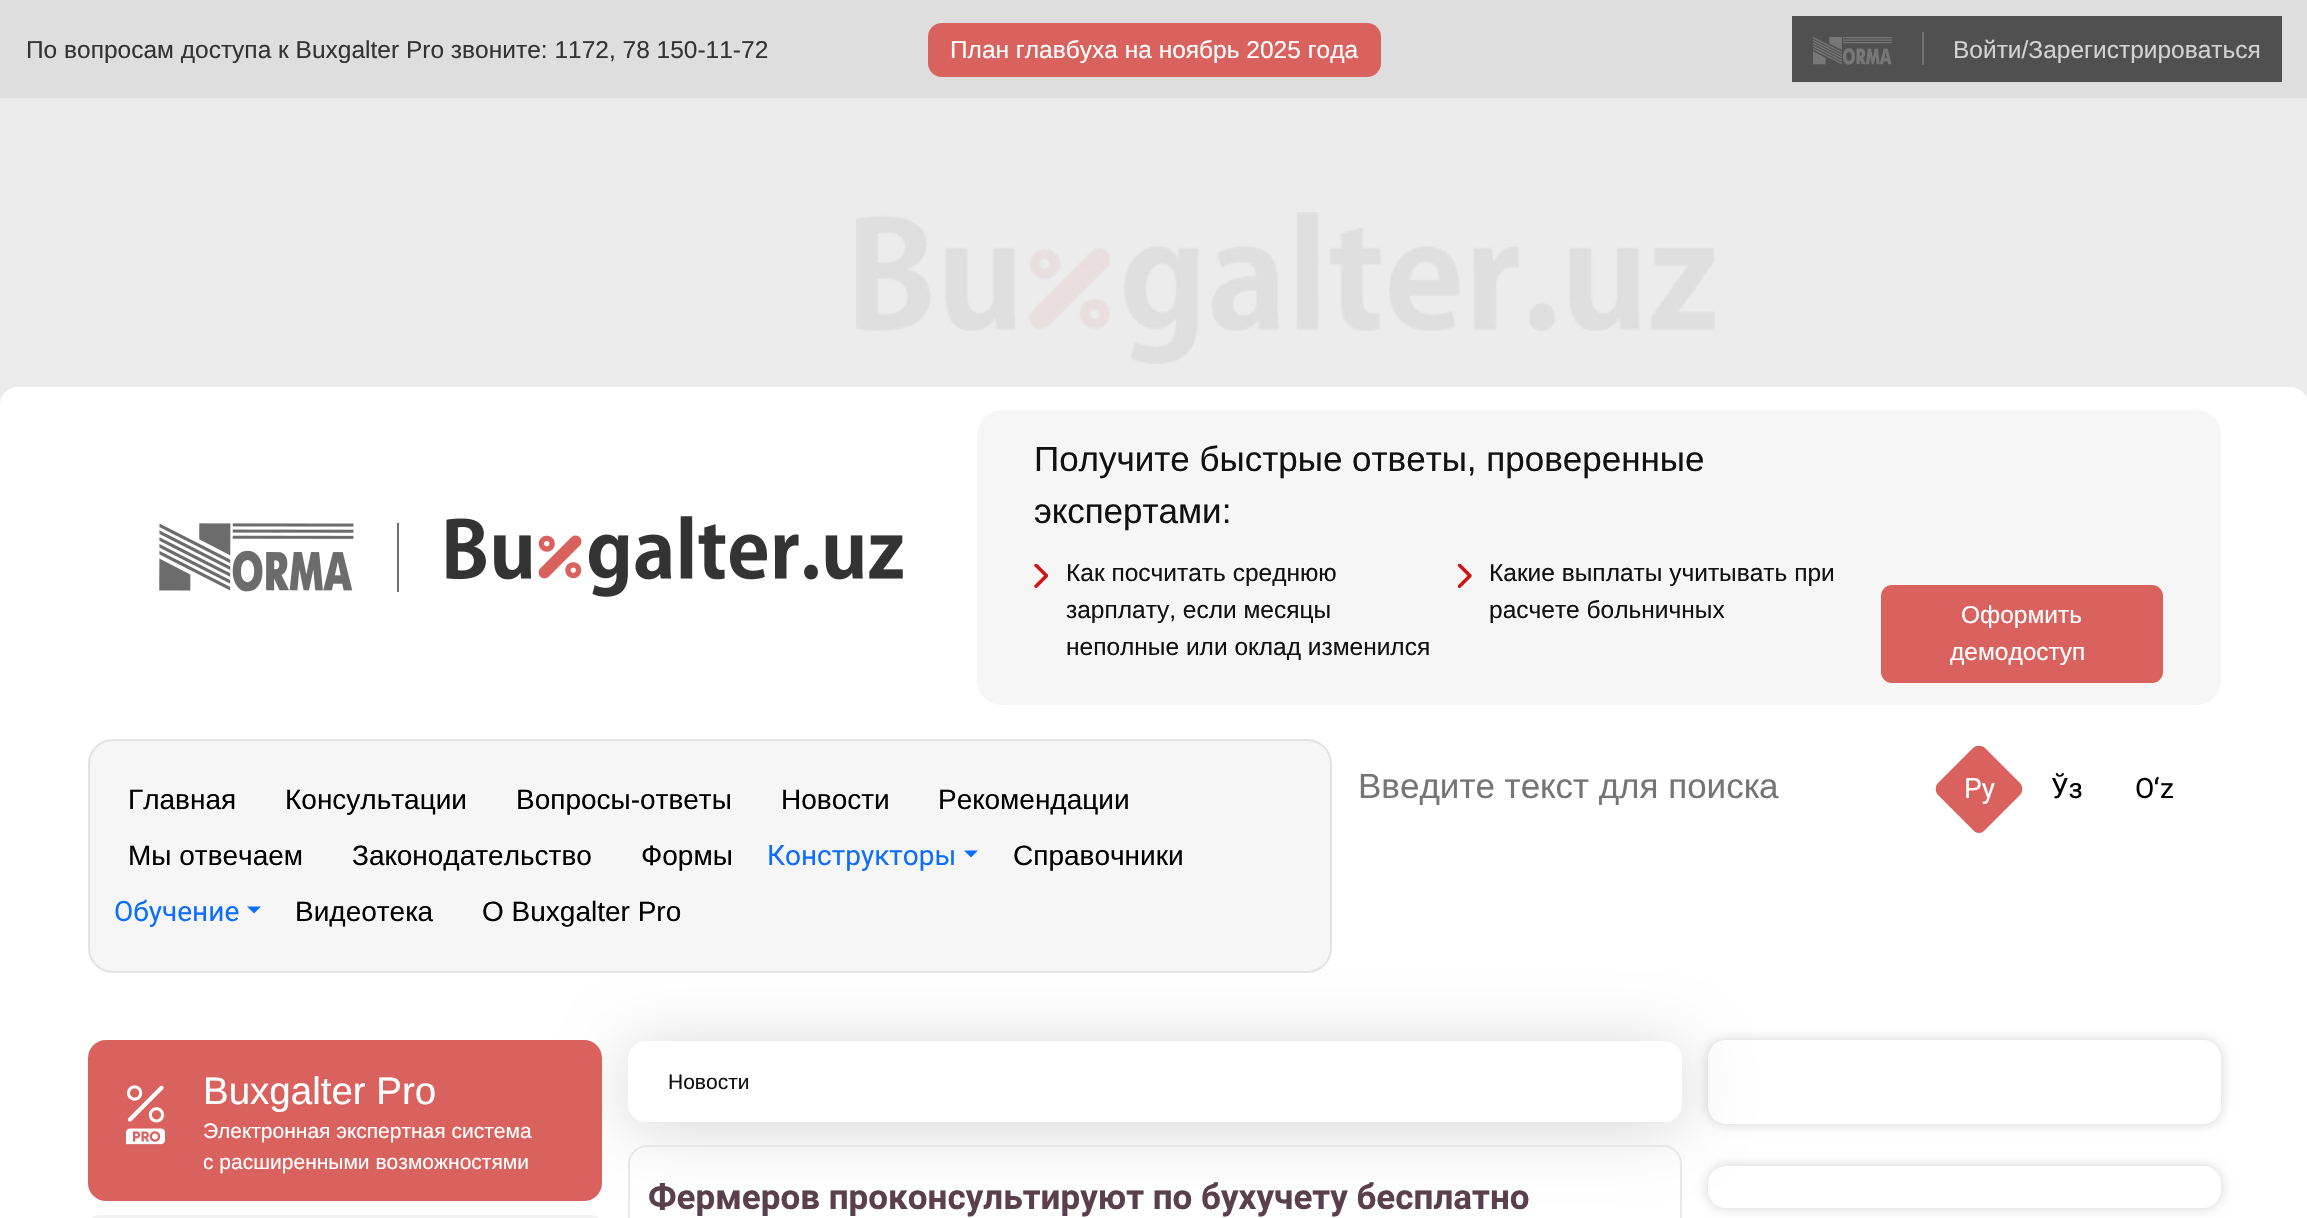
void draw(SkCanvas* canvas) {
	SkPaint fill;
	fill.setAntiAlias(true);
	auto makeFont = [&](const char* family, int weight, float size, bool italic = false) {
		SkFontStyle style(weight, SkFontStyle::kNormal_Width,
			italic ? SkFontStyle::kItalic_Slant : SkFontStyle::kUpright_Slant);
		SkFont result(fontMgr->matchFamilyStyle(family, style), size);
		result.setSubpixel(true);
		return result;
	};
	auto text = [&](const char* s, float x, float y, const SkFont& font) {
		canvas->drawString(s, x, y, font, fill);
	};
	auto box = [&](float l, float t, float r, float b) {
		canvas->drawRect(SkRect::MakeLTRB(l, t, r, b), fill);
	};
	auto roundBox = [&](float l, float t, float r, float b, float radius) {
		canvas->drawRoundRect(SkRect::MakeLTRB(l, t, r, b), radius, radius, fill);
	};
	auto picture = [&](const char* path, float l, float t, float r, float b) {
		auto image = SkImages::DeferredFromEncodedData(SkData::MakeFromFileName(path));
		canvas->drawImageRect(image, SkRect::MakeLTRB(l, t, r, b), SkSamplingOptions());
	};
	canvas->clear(0xFFECECEC);
	fill.setColor(0xFFDEDEDE);
	box(0, 0, 2307, 98);
	fill.setColor(0xFFD9625E);
	roundBox(928, 23, 1381, 77, 14);
	fill.setColor(0xFF505050);
	box(1792, 16, 2282, 82);
	picture("image0.png", 1813, 37, 1892, 65);
	fill.setColor(0xFF707070);
	box(1922, 32, 1924, 65);
	fill.setColor(0xFFFFFFFF);
	canvas->drawPath(SkPathBuilder().moveTo(18, 387).lineTo(2290, 387).cubicTo(2300, 387, 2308, 395, 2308, 405).lineTo(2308, 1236).lineTo(0, 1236).lineTo(0, 405).cubicTo(0, 395, 8, 387, 18, 387).close().detach(), fill);
	picture("image1.png", 856, 212, 1715, 364);
	picture("image2.png", 159, 523, 354, 592);
	fill.setColor(0xFF707070);
	box(397, 523, 399, 592);
	picture("image3.png", 446, 516, 903, 597);
	fill.setColor(0xFFF6F6F6);
	roundBox(977, 410, 2221, 705, 25);
	picture("image4.png", 1034, 564, 1048, 588);
	picture("image5.png", 1458, 564, 1472, 588);
	fill.setColor(0xFFD9625E);
	roundBox(1881, 585, 2163, 683, 11);
	fill.setColor(0x29000000);
	fill.setMaskFilter(SkMaskFilter::MakeBlur(kNormal_SkBlurStyle, 32.5f));
	canvas->drawRoundRect(SkRect::MakeLTRB(628, 1047, 1682, 1127), 18, 18, fill);
	fill.setMaskFilter(nullptr);
	fill.setColor(0xFFF6F6F6);
	canvas->drawRoundRect(SkRect::MakeLTRB(89, 740, 1331, 972), 24, 24, fill);
	fill.setStyle(SkPaint::kStroke_Style);
	fill.setStrokeWidth(2);
	fill.setColor(0xFFE3E3E3);
	canvas->drawRoundRect(SkRect::MakeLTRB(89, 740, 1331, 972), 24, 24, fill);
	fill.setStyle(SkPaint::kFill_Style);
	fill.setColor(0xFF0D6EFD);
	canvas->drawPath(SkPathBuilder().moveTo(964, 850.5f).lineTo(978, 850.5f).lineTo(971, 857.5f).close().detach(), fill);
	canvas->drawPath(SkPathBuilder().moveTo(247, 906.5f).lineTo(261, 906.5f).lineTo(254, 913.5f).close().detach(), fill);
	fill.setColor(0xFFD9625E);
	canvas->drawPath(SkPathBuilder().moveTo(1938, 783).lineTo(1973, 748).cubicTo(1976, 745, 1982, 745, 1985, 748).lineTo(2020, 783).cubicTo(2023, 786, 2023, 792, 2020, 795).lineTo(1985, 830).cubicTo(1982, 834, 1976, 834, 1973, 830).lineTo(1938, 795).cubicTo(1935, 792, 1935, 786, 1938, 783).close().detach(), fill);
	roundBox(88, 1040, 602, 1201, 18);
	picture("image6.png", 126, 1085, 165, 1145);
	fill.setColor(0xFFF2F2F2);
	roundBox(88, 1215, 602, 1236, 18);
	fill.setColor(0xFFFFFFFF);
	roundBox(628, 1041, 1682, 1122, 18);
	fill.setStyle(SkPaint::kStroke_Style);
	fill.setColor(0xFFE8E8E8);
	canvas->drawRoundRect(SkRect::MakeLTRB(629, 1146, 1681, 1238), 18, 18, fill);
	canvas->save();
	canvas->clipPath(SkPathBuilder(SkPathFillType::kEvenOdd).moveTo(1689, 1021).lineTo(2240, 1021).lineTo(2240, 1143).lineTo(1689, 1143).close().moveTo(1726, 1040).lineTo(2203, 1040).cubicTo(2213, 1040, 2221, 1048, 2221, 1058).lineTo(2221, 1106).cubicTo(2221, 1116, 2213, 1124, 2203, 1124).lineTo(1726, 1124).cubicTo(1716, 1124, 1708, 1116, 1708, 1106).lineTo(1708, 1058).cubicTo(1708, 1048, 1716, 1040, 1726, 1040).close().detach(), true);
	fill.setStyle(SkPaint::kFill_Style);
	fill.setColor(0x2B000000);
	fill.setMaskFilter(SkMaskFilter::MakeBlur(kNormal_SkBlurStyle, 6));
	canvas->drawRoundRect(SkRect::MakeLTRB(1708, 1040, 2221, 1124), 18, 18, fill);
	fill.setMaskFilter(nullptr);
	canvas->restore();
	canvas->save();
	canvas->clipPath(SkPathBuilder(SkPathFillType::kEvenOdd).moveTo(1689, 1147).lineTo(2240, 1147).lineTo(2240, 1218).lineTo(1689, 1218).close().moveTo(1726, 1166).lineTo(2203, 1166).cubicTo(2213, 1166, 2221, 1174, 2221, 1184).lineTo(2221, 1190).cubicTo(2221, 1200, 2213, 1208, 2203, 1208).lineTo(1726, 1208).cubicTo(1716, 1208, 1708, 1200, 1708, 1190).lineTo(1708, 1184).cubicTo(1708, 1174, 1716, 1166, 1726, 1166).close().detach(), true);
	fill.setMaskFilter(SkMaskFilter::MakeBlur(kNormal_SkBlurStyle, 6));
	canvas->drawRoundRect(SkRect::MakeLTRB(1708, 1166, 2221, 1208), 18, 18, fill);
	fill.setMaskFilter(nullptr);
	canvas->restore();
	auto font1 = makeFont("Liberation Sans", 400, 24.5f);
	fill.setColor(0xFF343333);
	text("По вопросам доступа к Buxgalter Pro звоните: 1172, 78 150-11-72", 26, 58, font1);
	fill.setColor(0xFFFFFFFF);
	text("План главбуха на ноябрь 2025 года", 950, 58, font1);
	fill.setColor(0xFFD2D2D2);
	text("Войти/Зарегистрироваться", 1953, 58, font1);
	auto font2 = makeFont("Liberation Sans", 400, 35);
	fill.setColor(0xFF111111);
	text("Получите быстрые ответы, проверенные", 1034, 471, font2);
	text("экспертами:", 1034, 523, font2);
	text("Как посчитать среднюю", 1066, 581, font1);
	text("зарплату, если месяцы", 1066, 618, font1);
	text("неполные или оклад изменился", 1066, 655, font1);
	text("Какие выплаты учитывать при", 1489, 581, font1);
	text("расчете больничных", 1489, 618, font1);
	fill.setColor(0xFFFFFFFF);
	text("Оформить", 1961, 623, font1);
	text("демо‑доступ", 1950, 660, font1);
	auto font3 = makeFont("Liberation Sans", 400, 28);
	fill.setColor(0xFF000000);
	text("Главная", 128, 809, font3);
	text("Консультации", 285, 809, font3);
	text("Вопросы-ответы", 516, 809, font3);
	text("Новости", 781, 809, font3);
	text("Рекомендации", 938, 809, font3);
	text("Мы отвечаем", 128, 865, font3);
	text("Законодательство", 352, 865, font3);
	text("Формы", 641, 865, font3);
	auto font4 = makeFont("Roboto", 400, 28);
	fill.setColor(0xFF0D6EFD);
	text("Конструкторы", 767, 865, font4);
	fill.setColor(0xFF000000);
	text("Справочники", 1013, 865, font3);
	fill.setColor(0xFF0D6EFD);
	text("Обучение", 114, 921, font4);
	fill.setColor(0xFF000000);
	text("Видеотека", 295, 921, font3);
	text("О Buxgalter Pro", 482, 921, font3);
	fill.setColor(0xFF757575);
	text("Введите текст для поиска", 1358, 798, font2);
	fill.setColor(0xFFFFFFFF);
	text("Ру", 1964, 798, font4);
	fill.setColor(0xFF000000);
	text("Ўз", 2051, 798, font4);
	text("O", 2135, 798, font4);
	auto font5 = makeFont("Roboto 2", 400, 28);
	text("ʻ", 2154, 798, font5);
	text("z", 2160, 798, font4);
	auto font6 = makeFont("Liberation Sans", 400, 38.5f);
	fill.setColor(0xFFFFFFFF);
	text("Buxgalter Pro", 203, 1104, font6);
	auto font7 = makeFont("Liberation Sans", 400, 21);
	text("Электронная экспертная система", 203, 1138, font7);
	text("с расширенными возможностями", 203, 1169, font7);
	fill.setColor(0xFF111111);
	text("Новости", 668, 1089, font7);
	auto font8 = makeFont("Roboto", 700, 35);
	fill.setColor(0xFF5A404C);
	text("Фермеров проконсультируют по бухучету бесплатно", 648, 1209, font8);
}
